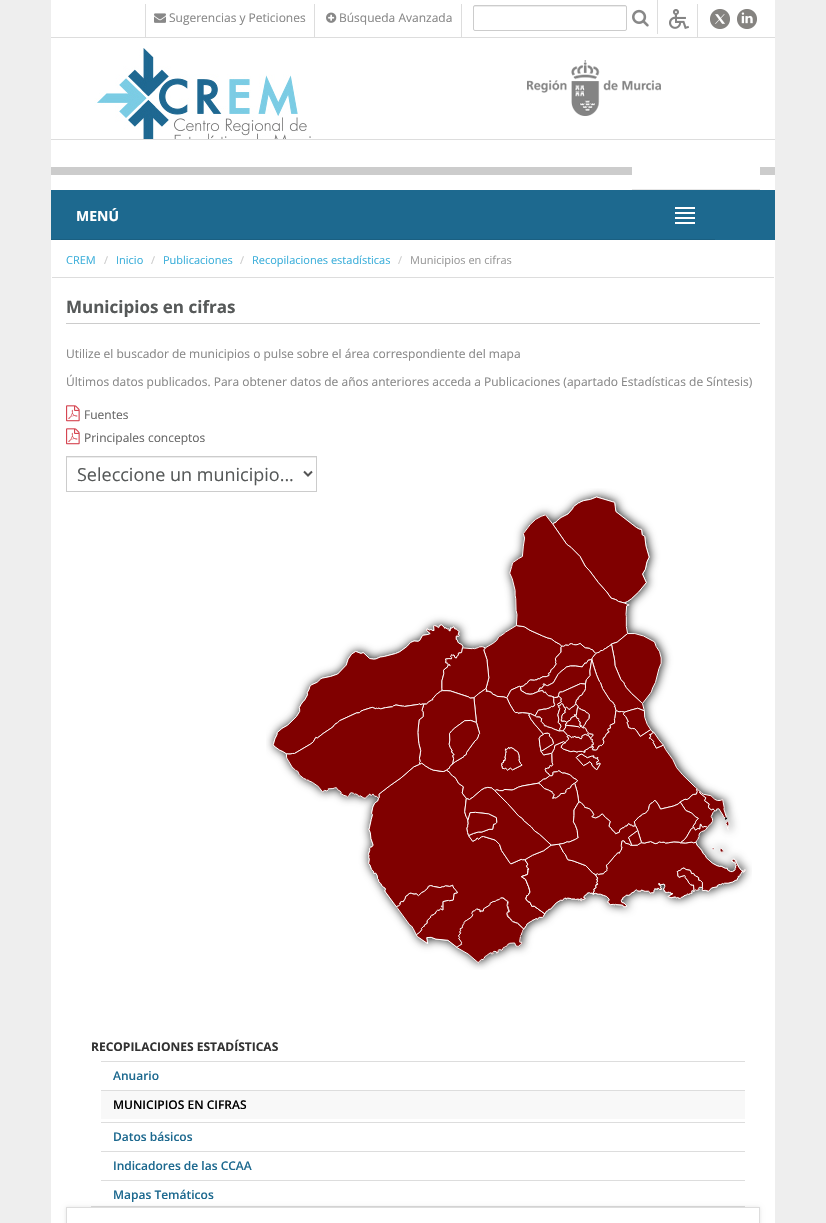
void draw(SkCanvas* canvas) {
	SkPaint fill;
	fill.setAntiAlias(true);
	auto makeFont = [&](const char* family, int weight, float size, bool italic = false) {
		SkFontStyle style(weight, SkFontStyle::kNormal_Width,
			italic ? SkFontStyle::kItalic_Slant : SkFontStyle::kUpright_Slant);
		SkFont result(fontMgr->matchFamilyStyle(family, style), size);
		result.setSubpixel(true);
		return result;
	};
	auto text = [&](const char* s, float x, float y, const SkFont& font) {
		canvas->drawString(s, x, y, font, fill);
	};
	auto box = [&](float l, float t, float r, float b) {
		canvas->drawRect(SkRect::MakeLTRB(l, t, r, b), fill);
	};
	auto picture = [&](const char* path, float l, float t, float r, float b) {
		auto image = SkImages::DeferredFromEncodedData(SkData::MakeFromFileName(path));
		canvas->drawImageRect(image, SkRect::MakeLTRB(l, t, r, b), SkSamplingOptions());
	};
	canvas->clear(0xFFEEEEEE);
	fill.setColor(0xFFFFFFFF);
	box(51, 0, 775, 139);
	fill.setColor(0xFFDDDDDD);
	box(51, 37, 775, 38);
	box(314, 4, 315, 38);
	box(145, 4, 146, 38);
	picture("image0.png", 154, 13, 166, 23);
	box(461, 4, 462, 38);
	picture("image1.png", 326, 12, 337, 23);
	box(657, 0, 658, 34);
	fill.setColor(0xFFECECEC);
	canvas->drawPath(SkPathBuilder().moveTo(475, 7).lineTo(625, 7).cubicTo(626, 7, 626, 7, 626, 8).cubicTo(626, 7, 626, 6, 625, 6).lineTo(474, 6).lineTo(474, 8).cubicTo(474, 7, 474, 7, 475, 7).close().detach(), fill);
	fill.setStyle(SkPaint::kStroke_Style);
	fill.setStrokeWidth(1);
	fill.setColor(0xFFCCCCCC);
	canvas->drawRoundRect(SkRect::MakeLTRB(473.5f, 5.5f, 626.5f, 30.5f), 1.5f, 1.5f, fill);
	picture("image2.png", 632, 9, 649, 27);
	fill.setStyle(SkPaint::kFill_Style);
	fill.setColor(0xFFDDDDDD);
	box(697, 4, 698, 38);
	picture("image3.png", 669, 9, 689, 29);
	picture("image4.png", 710, 9, 730, 29);
	picture("image5.png", 737, 9, 757, 29);
	picture("image6.png", 94, 48, 320, 139);
	picture("image7.png", 527, 60, 661, 116);
	fill.setColor(0xFFFFFFFF);
	box(51, 240, 775, 1223);
	box(51, 140, 775, 190);
	fill.setColor(0xFFCCCCCC);
	box(51, 167, 775, 175);
	fill.setColor(0xFFDDDDDD);
	box(51, 139, 775, 140);
	fill.setColor(0xFFFFFFFF);
	box(632, 167, 760, 175);
	fill.setColor(0xFFE6E6E6);
	box(632, 189, 760, 190);
	fill.setColor(0xFF1D698F);
	box(51, 190, 775, 240);
	fill.setColor(0xFF1A5F81);
	box(51, 239, 715, 240);
	fill.setColor(0xFFFFFFFF);
	box(675, 207, 695, 209);
	box(675, 212, 695, 214);
	box(675, 217, 695, 219);
	box(675, 222, 695, 224);
	fill.setColor(0xFFDDDDDD);
	box(52, 277, 774, 278);
	fill.setColor(0xFFCCCCCC);
	box(66, 323, 760, 324);
	picture("image8.png", 66, 405, 80, 422);
	picture("image8.png", 66, 428, 80, 445);
	fill.setColor(0xFFECECEC);
	box(67, 457, 316, 458);
	picture("image9.png", 266, 488, 752, 970);
	fill.setStyle(SkPaint::kStroke_Style);
	fill.setColor(0xFFCCCCCC);
	canvas->drawRect(SkRect::MakeLTRB(66.5f, 456.5f, 316.5f, 491.5f), fill);
	fill.setStrokeWidth(2);
	fill.setColor(0xFF555555);
	canvas->drawPath(SkPathBuilder().moveTo(304, 471.5f).lineTo(308, 475.5f).lineTo(312, 471.5f).detach(), fill);
	fill.setStyle(SkPaint::kFill_Style);
	fill.setColor(0xFFDDDDDD);
	box(91, 1206, 745, 1207);
	box(101, 1061, 745, 1062);
	fill.setColor(0xFFF8F8F8);
	box(101, 1091, 745, 1119);
	fill.setColor(0xFFDDDDDD);
	box(101, 1090, 745, 1091);
	box(101, 1122, 745, 1123);
	box(101, 1151, 745, 1152);
	box(101, 1180, 745, 1181);
	canvas->save();
	canvas->clipPath(SkPathBuilder(SkPathFillType::kEvenOdd).moveTo(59, 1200).lineTo(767, 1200).lineTo(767, 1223).lineTo(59, 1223).close().moveTo(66, 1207).lineTo(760, 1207).lineTo(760, 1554).lineTo(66, 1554).close().detach(), true);
	fill.setColor(0x1A000000);
	fill.setMaskFilter(SkMaskFilter::MakeBlur(kNormal_SkBlurStyle, 2));
	canvas->drawRect(SkRect::MakeLTRB(66, 1207, 760, 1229), fill);
	fill.setMaskFilter(nullptr);
	canvas->restore();
	fill.setStyle(SkPaint::kStroke_Style);
	fill.setStrokeWidth(1);
	fill.setColor(0xFFDDDDDD);
	canvas->drawRect(SkRect::MakeLTRB(66.5f, 1207.5f, 759.5f, 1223.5f), fill);
	auto font1 = makeFont("Open Sans", 400, 12);
	fill.setStyle(SkPaint::kFill_Style);
	fill.setColor(0xFF888888);
	text("Sugerencias y Peticiones", 169, 22, font1);
	text("Búsqueda Avanzada", 339, 22, font1);
	auto font2 = makeFont("Open Sans", 700, 14);
	fill.setColor(0xFFFFFFFF);
	text("MENÚ", 76, 221, font2);
	auto font3 = makeFont("Open Sans", 400, 11);
	fill.setColor(0xFF3AAEDA);
	text("CREM", 66, 264, font3);
	fill.setColor(0xFFCCCCCC);
	text("/", 104, 264, font3);
	fill.setColor(0xFF3AAEDA);
	text("Inicio", 116, 264, font3);
	fill.setColor(0xFFCCCCCC);
	text("/", 151, 264, font3);
	fill.setColor(0xFF3AAEDA);
	text("Publicaciones", 163, 264, font3);
	fill.setColor(0xFFCCCCCC);
	text("/", 240, 264, font3);
	fill.setColor(0xFF3AAEDA);
	text("Recopilaciones estadísticas", 252, 264, font3);
	fill.setColor(0xFFCCCCCC);
	text("/", 398, 264, font3);
	fill.setColor(0xFF999999);
	text("Municipios en cifras", 410, 264, font3);
	auto font4 = makeFont("Open Sans", 700, 17);
	fill.setColor(0xFF565959);
	text("Municipios en cifras", 66, 313, font4);
	fill.setColor(0xFF888888);
	text("Utilize el buscador de municipios o pulse sobre el área correspondiente del mapa", 66, 358, font1);
	text("Últimos datos publicados. Para obtener datos de años anteriores acceda a Publicaciones (apartado Estadísticas de Síntesis)", 66, 386, font1);
	fill.setColor(0xFF666666);
	text("Fuentes", 84, 419, font1);
	text("Principales conceptos", 84, 442, font1);
	auto font5 = makeFont("Open Sans", 400, 18);
	fill.setColor(0xFF565959);
	text("Seleccione un municipio...", 77, 481, font5);
	auto font6 = makeFont("Open Sans", 700, 12);
	fill.setColor(0xFF333333);
	text("RECOPILACIONES ESTADÍSTICAS", 91, 1051, font6);
	auto font7 = makeFont("Open Sans", 600, 12);
	fill.setColor(0xFF1D698F);
	text("Anuario", 113, 1080, font7);
	fill.setColor(0xFF000000);
	text("MUNICIPIOS EN CIFRAS", 113, 1109, font7);
	fill.setColor(0xFF1D698F);
	text("Datos básicos", 113, 1141, font7);
	text("Indicadores de las CCAA", 113, 1170, font7);
	text("Mapas Temáticos", 113, 1199, font7);
}
